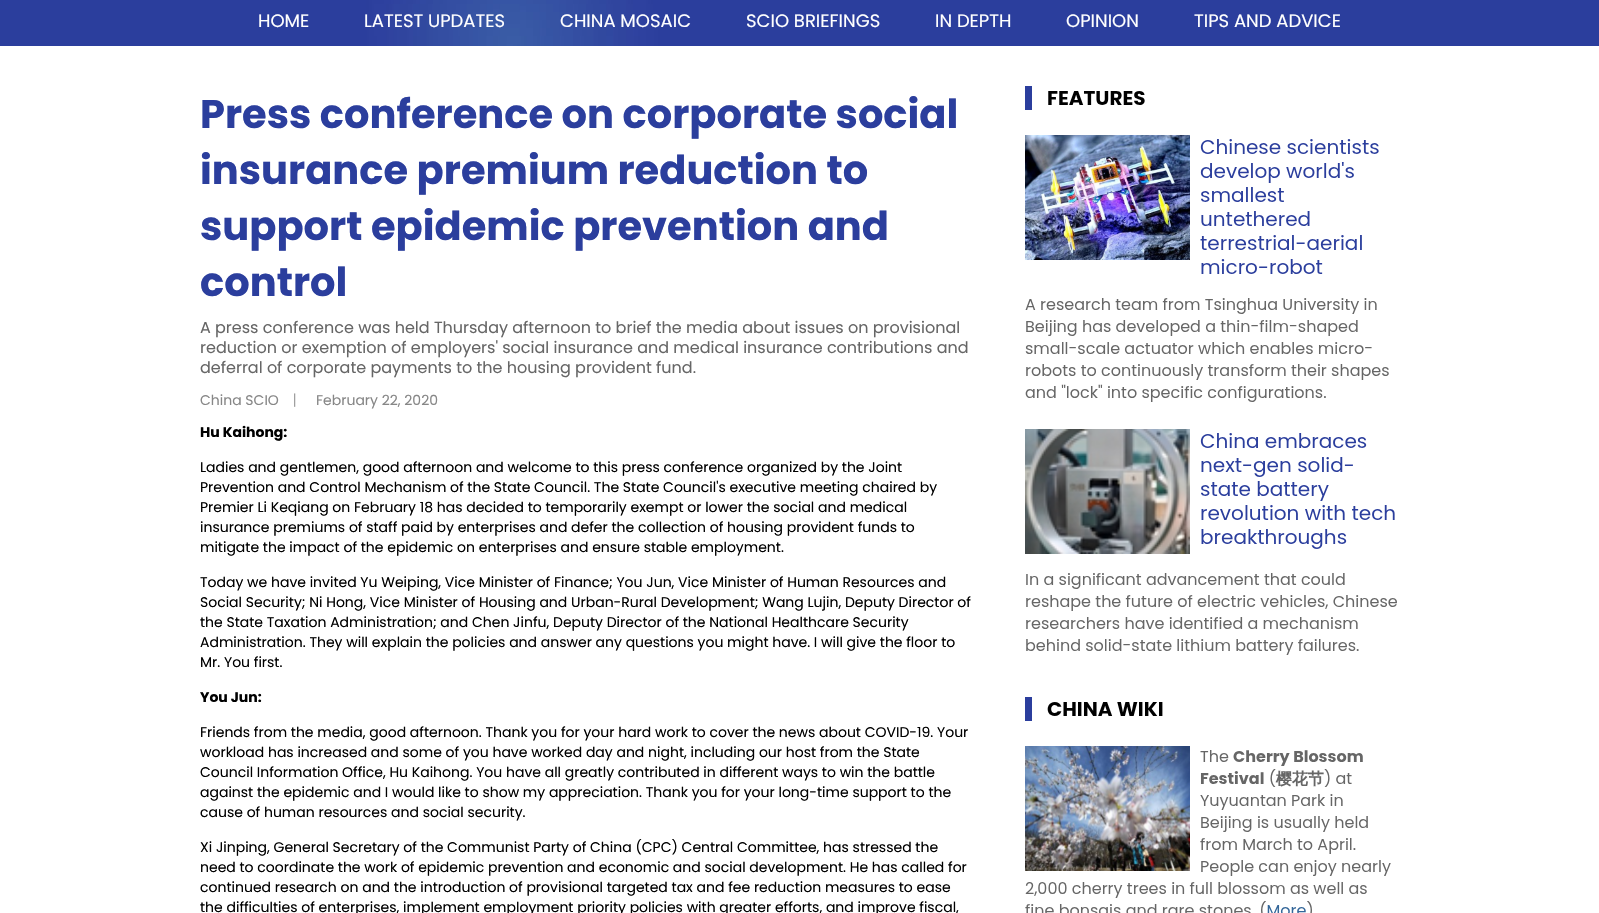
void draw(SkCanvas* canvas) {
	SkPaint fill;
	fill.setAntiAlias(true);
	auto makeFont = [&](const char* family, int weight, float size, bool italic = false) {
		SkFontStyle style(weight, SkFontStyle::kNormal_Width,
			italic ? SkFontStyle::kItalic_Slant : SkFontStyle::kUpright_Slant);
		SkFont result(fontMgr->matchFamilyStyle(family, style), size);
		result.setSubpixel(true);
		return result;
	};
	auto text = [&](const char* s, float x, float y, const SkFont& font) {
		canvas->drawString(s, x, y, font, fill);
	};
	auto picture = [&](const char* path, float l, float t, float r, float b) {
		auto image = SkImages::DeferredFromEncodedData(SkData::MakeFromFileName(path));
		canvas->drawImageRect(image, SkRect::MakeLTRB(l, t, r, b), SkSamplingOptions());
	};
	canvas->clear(0xFFFFFFFF);
	picture("image0.png", 0, 0, 1599, 46);
	picture("image1.png", 1025, 86, 1397, 913);
	auto font1 = makeFont("Poppins", 400, 18);
	fill.setColor(0xFFFFFFFF);
	text("HOME", 258, 27, font1);
	text("LATEST UPDATES", 364, 27, font1);
	text("CHINA MOSAIC", 560, 27, font1);
	text("SCIO BRIEFINGS", 746, 27, font1);
	text("IN DEPTH", 935, 27, font1);
	text("OPINION", 1066, 27, font1);
	text("TIPS AND ADVICE", 1194, 27, font1);
	auto font2 = makeFont("Poppins", 700, 40);
	fill.setColor(0xFF2B3E9D);
	text("Press conference on corporate social", 200, 128, font2);
	text("insurance premium reduction to", 200, 184, font2);
	text("support epidemic prevention and", 200, 240, font2);
	text("control", 200, 296, font2);
	auto font3 = makeFont("Poppins", 400, 16);
	fill.setColor(0xFF666666);
	text("A press conference was held Thursday afternoon to brief the media about issues on provisional", 200, 333, font3);
	text("reduction or exemption of employers' social insurance and medical insurance contributions and", 200, 353, font3);
	text("deferral of corporate payments to the housing provident fund.", 200, 373, font3);
	auto font4 = makeFont("Poppins", 400, 14);
	fill.setColor(0xFF878787);
	text("China SCIO", 200, 405, font4);
	auto font5 = makeFont("WenQuanYi Zen Hei", 500, 14);
	fill.setColor(0xFF999999);
	text("丨", 288, 405, font5);
	fill.setColor(0xFF878787);
	text("February 22, 2020", 316, 405, font4);
	auto font6 = makeFont("Poppins", 700, 14);
	fill.setColor(0xFF000000);
	text("Hu Kaihong:", 200, 437, font6);
	text("Ladies and gentlemen, good afternoon and welcome to this press conference organized by the Joint", 200, 472, font4);
	text("Prevention and Control Mechanism of the State Council. The State Council's executive meeting chaired by", 200, 492, font4);
	text("Premier Li Keqiang on February 18 has decided to temporarily exempt or lower the social and medical", 200, 512, font4);
	text("insurance premiums of staff paid by enterprises and defer the collection of housing provident funds to", 200, 532, font4);
	text("mitigate the impact of the epidemic on enterprises and ensure stable employment.", 200, 552, font4);
	text("Today we have invited Yu Weiping, Vice Minister of Finance; You Jun, Vice Minister of Human Resources and", 200, 587, font4);
	text("Social Security; Ni Hong, Vice Minister of Housing and Urban-Rural Development; Wang Lujin, Deputy Director of", 200, 607, font4);
	text("the State Taxation Administration; and Chen Jinfu, Deputy Director of the National Healthcare Security", 200, 627, font4);
	text("Administration. They will explain the policies and answer any questions you might have. I will give the floor to", 200, 647, font4);
	text("Mr. You first.", 200, 667, font4);
	text("You Jun:", 200, 702, font6);
	text("Friends from the media, good afternoon. Thank you for your hard work to cover the news about COVID-19. Your", 200, 737, font4);
	text("workload has increased and some of you have worked day and night, including our host from the State", 200, 757, font4);
	text("Council Information Office, Hu Kaihong. You have all greatly contributed in different ways to win the battle", 200, 777, font4);
	text("against the epidemic and I would like to show my appreciation. Thank you for your long-time support to the", 200, 797, font4);
	text("cause of human resources and social security.", 200, 817, font4);
	text("Xi Jinping, General Secretary of the Communist Party of China (CPC) Central Committee, has stressed the", 200, 852, font4);
	text("need to coordinate the work of epidemic prevention and economic and social development. He has called for", 200, 872, font4);
	text("continued research on and the introduction of provisional targeted tax and fee reduction measures to ease", 200, 892, font4);
	text("the difficulties of enterprises, implement employment priority policies with greater efforts, and improve fiscal,", 200, 912, font4);
}
